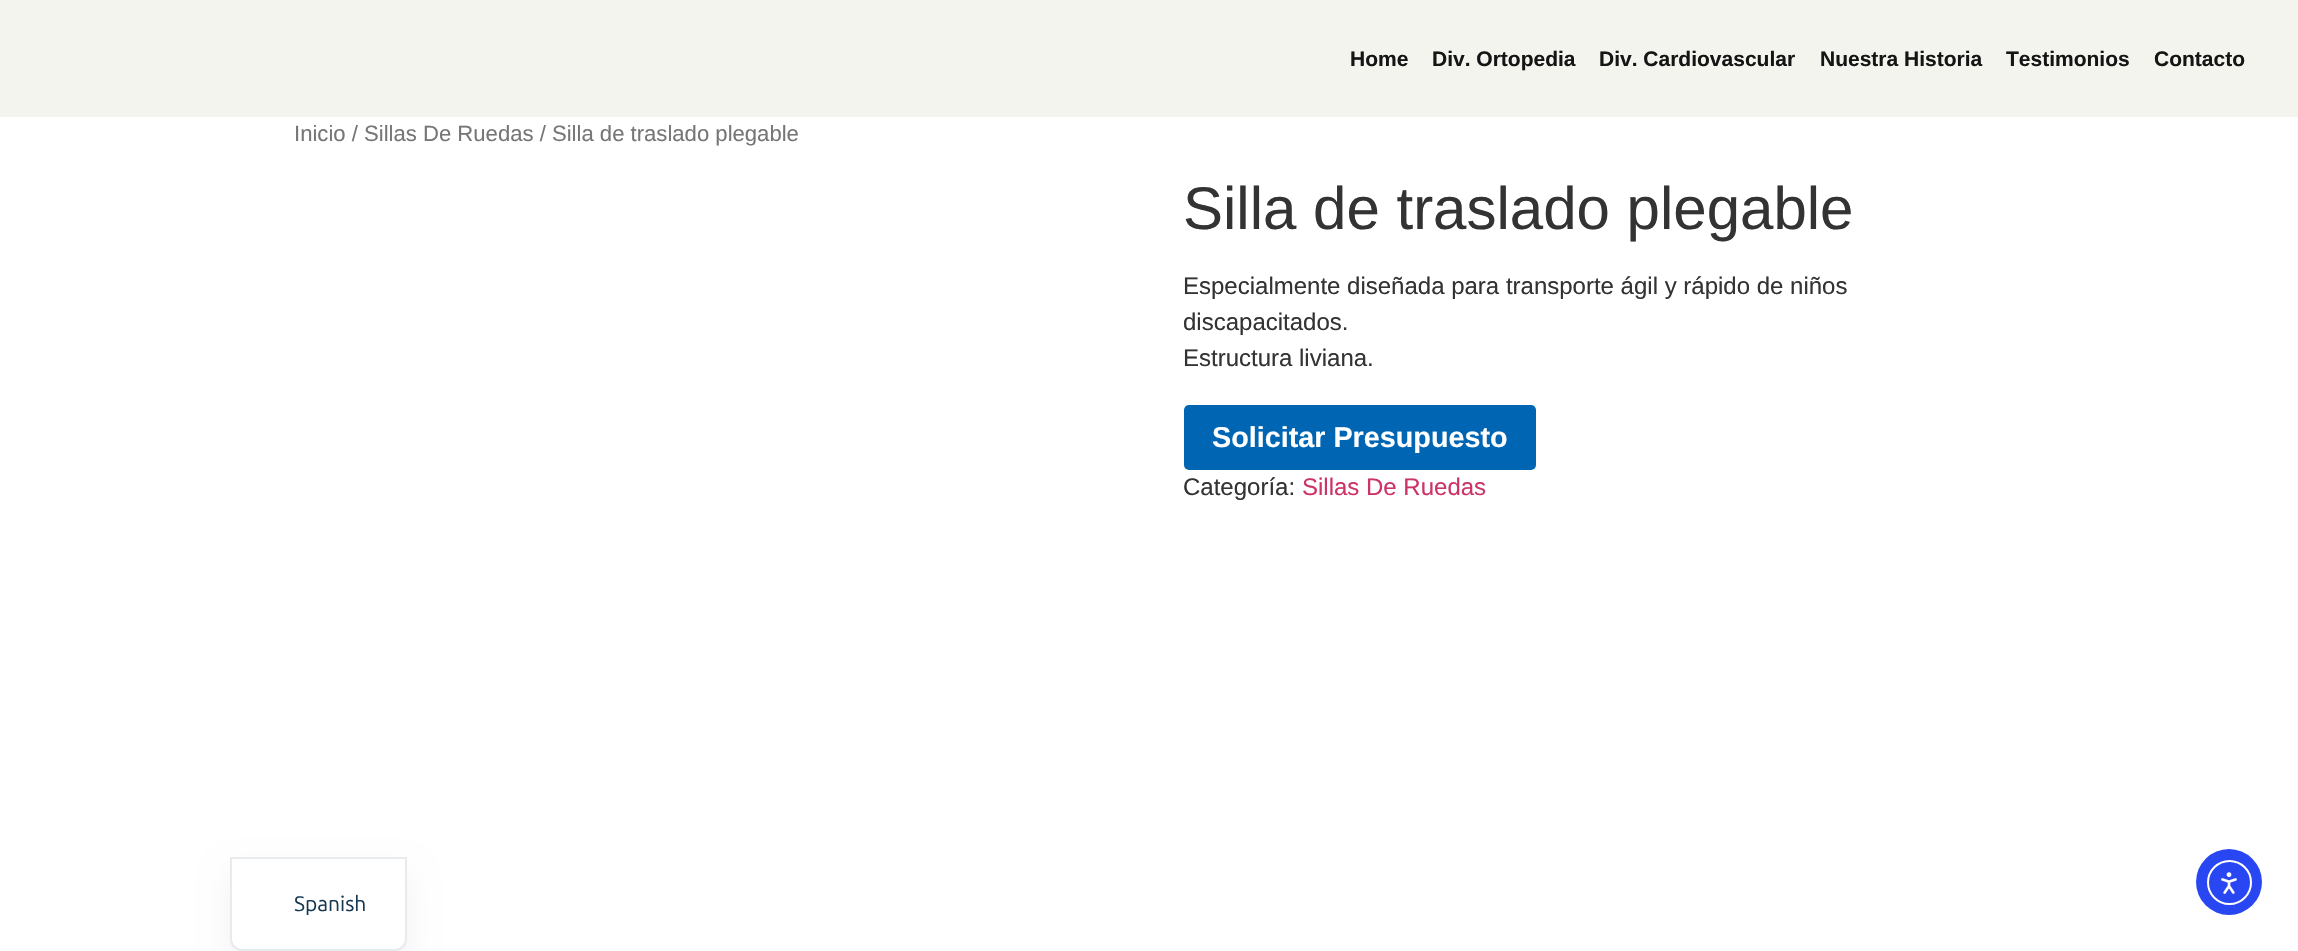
void draw(SkCanvas* canvas) {
	SkPaint fill;
	fill.setAntiAlias(true);
	auto makeFont = [&](const char* family, int weight, float size, bool italic = false) {
		SkFontStyle style(weight, SkFontStyle::kNormal_Width,
			italic ? SkFontStyle::kItalic_Slant : SkFontStyle::kUpright_Slant);
		SkFont result(fontMgr->matchFamilyStyle(family, style), size);
		result.setSubpixel(true);
		return result;
	};
	auto text = [&](const char* s, float x, float y, const SkFont& font) {
		canvas->drawString(s, x, y, font, fill);
	};
	auto box = [&](float l, float t, float r, float b) {
		canvas->drawRect(SkRect::MakeLTRB(l, t, r, b), fill);
	};
	auto roundBox = [&](float l, float t, float r, float b, float radius) {
		canvas->drawRoundRect(SkRect::MakeLTRB(l, t, r, b), radius, radius, fill);
	};
	auto picture = [&](const char* path, float l, float t, float r, float b) {
		auto image = SkImages::DeferredFromEncodedData(SkData::MakeFromFileName(path));
		canvas->drawImageRect(image, SkRect::MakeLTRB(l, t, r, b), SkSamplingOptions());
	};
	canvas->clear(0xFFFFFFFF);
	fill.setColor(0xFFF4F4EE);
	box(0, 0, 2298, 117);
	fill.setColor(0xFF0066B4);
	roundBox(1184, 405, 1536, 470, 5);
	fill.setColor(0x0D000000);
	fill.setMaskFilter(SkMaskFilter::MakeBlur(kNormal_SkBlurStyle, 15));
	canvas->drawRoundRect(SkRect::MakeLTRB(230, 872, 407, 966), 12, 12, fill);
	fill.setMaskFilter(nullptr);
	fill.setColor(0xFFFFFFFF);
	canvas->drawPath(SkPathBuilder().moveTo(231, 858).lineTo(406, 858).lineTo(406, 939).cubicTo(406, 945, 401, 950, 395, 950).lineTo(242, 950).cubicTo(236, 950, 231, 945, 231, 939).close().detach(), fill);
	fill.setStyle(SkPaint::kStroke_Style);
	fill.setStrokeWidth(2);
	fill.setColor(0xFFE7EBEE);
	canvas->drawPath(SkPathBuilder().moveTo(231, 858).lineTo(406, 858).lineTo(406, 939).cubicTo(406, 945, 401, 950, 395, 950).lineTo(242, 950).cubicTo(236, 950, 231, 945, 231, 939).close().detach(), fill);
	fill.setStyle(SkPaint::kFill_Style);
	fill.setColor(0xFF2847F3);
	canvas->drawCircle(2229, 882, 33, fill);
	fill.setStyle(SkPaint::kStroke_Style);
	fill.setColor(0xFFFFFFFF);
	canvas->drawCircle(2229.5f, 882.5f, 21.5f, fill);
	picture("image0.png", 2221, 872, 2237, 894);
	auto font1 = makeFont("Liberation Sans", 700, 21);
	fill.setStyle(SkPaint::kFill_Style);
	fill.setColor(0xFF151515);
	text("Home", 1350, 66, font1);
	text("Div. Ortopedia", 1432, 66, font1);
	text("Div. Cardiovascular", 1599, 66, font1);
	text("Nuestra Historia", 1820, 66, font1);
	text("Testimonios", 2006, 66, font1);
	text("Contacto", 2154, 66, font1);
	auto font2 = makeFont("Liberation Sans", 400, 22.1f);
	fill.setColor(0xFF767676);
	text("Inicio / Sillas De Ruedas / Silla de traslado plegable", 294, 141, font2);
	auto font3 = makeFont("Liberation Sans", 400, 60);
	fill.setColor(0xFF333333);
	text("Silla de traslado plegable", 1183, 229, font3);
	auto font4 = makeFont("Liberation Sans", 400, 24);
	text("Especialmente diseñada para transporte ágil y rápido de niños", 1183, 294, font4);
	text("discapacitados.", 1183, 330, font4);
	text("Estructura liviana.", 1183, 366, font4);
	auto font5 = makeFont("Liberation Sans", 700, 28.75f);
	fill.setColor(0xFFFFFFFF);
	text("Solicitar Presupuesto", 1212, 447, font5);
	fill.setColor(0xFF333333);
	text("Categoría:", 1183, 495, font4);
	fill.setColor(0xFFCC3366);
	text("Sillas De Ruedas", 1302, 495, font4);
	auto font6 = makeFont("Ubuntu", 400, 21);
	fill.setColor(0xFF143852);
	text("Spanish", 294, 911, font6);
}
